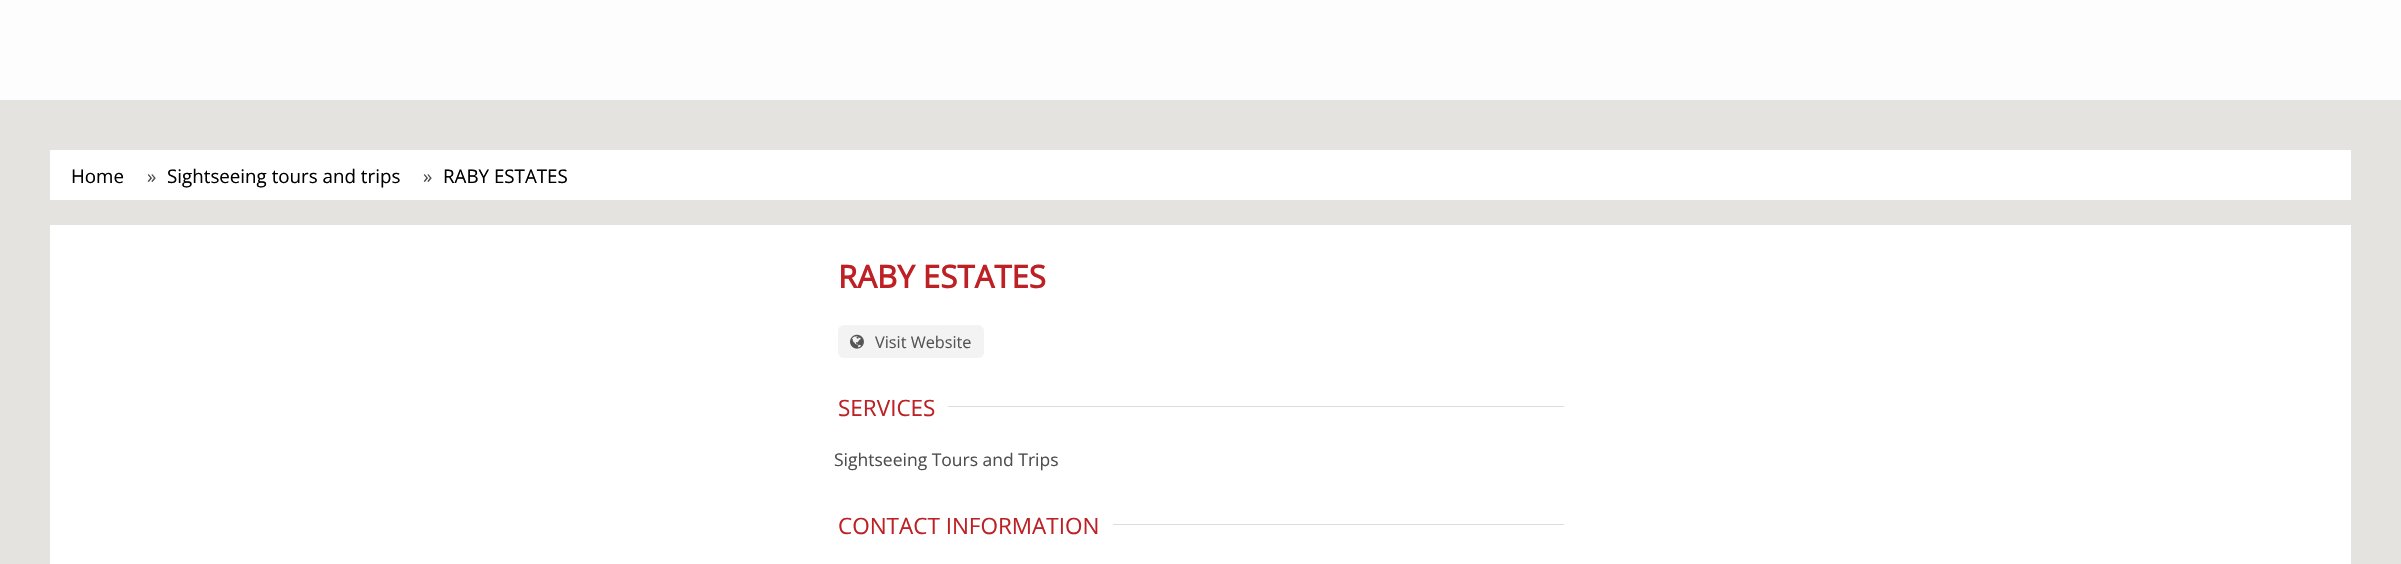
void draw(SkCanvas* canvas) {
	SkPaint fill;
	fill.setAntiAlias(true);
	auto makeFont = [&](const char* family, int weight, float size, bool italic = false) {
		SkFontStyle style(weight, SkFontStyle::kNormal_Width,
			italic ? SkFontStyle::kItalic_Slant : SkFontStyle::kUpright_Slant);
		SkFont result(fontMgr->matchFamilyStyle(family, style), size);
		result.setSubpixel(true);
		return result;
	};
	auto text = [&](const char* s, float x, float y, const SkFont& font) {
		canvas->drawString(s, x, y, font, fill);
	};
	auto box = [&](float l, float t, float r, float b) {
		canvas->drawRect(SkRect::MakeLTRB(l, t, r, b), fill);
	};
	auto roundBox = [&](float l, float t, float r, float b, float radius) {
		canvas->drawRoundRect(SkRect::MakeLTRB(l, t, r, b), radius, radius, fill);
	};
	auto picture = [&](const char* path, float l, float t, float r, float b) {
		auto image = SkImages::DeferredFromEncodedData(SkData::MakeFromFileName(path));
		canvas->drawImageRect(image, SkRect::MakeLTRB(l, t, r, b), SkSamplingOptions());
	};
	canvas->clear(0xFFE5E3DF);
	fill.setColor(0xFFFDFDFD);
	box(0, 0, 2401, 100);
	fill.setColor(0xFFFFFFFF);
	box(50, 150, 2351, 200);
	box(50, 225, 2351, 564);
	fill.setColor(0xFFF3F3F3);
	roundBox(838, 325, 984, 358, 6);
	picture("image0.png", 850, 334, 864, 349);
	fill.setColor(0xFFDCDCDC);
	box(948, 406, 1564, 407);
	box(1113, 524, 1564, 525);
	auto font1 = makeFont("Open Sans", 400, 18.75f);
	fill.setColor(0xFF000000);
	text("Home", 71, 183, font1);
	fill.setColor(0xFF4E4E4E);
	text("»", 147, 183, font1);
	fill.setColor(0xFF000000);
	text("Sightseeing tours and trips", 167, 183, font1);
	fill.setColor(0xFF4E4E4E);
	text("»", 423, 183, font1);
	fill.setColor(0xFF000000);
	text("RABY ESTATES", 443, 183, font1);
	auto font2 = makeFont("Open Sans", 700, 31.25f);
	fill.setColor(0xFFBD2125);
	text("RABY ESTATES", 838, 288, font2);
	auto font3 = makeFont("Open Sans", 400, 16.25f);
	fill.setColor(0xFF555555);
	text("Visit Website", 875, 348, font3);
	auto font4 = makeFont("Open Sans", 400, 22.5f);
	fill.setColor(0xFFBD2125);
	text("SERVICES", 838, 416, font4);
	auto font5 = makeFont("Open Sans", 400, 17.5f);
	fill.setColor(0xFF4E4E4E);
	text("Sightseeing Tours and Trips", 834, 466, font5);
	fill.setColor(0xFFBD2125);
	text("CONTACT INFORMATION", 838, 534, font4);
}
